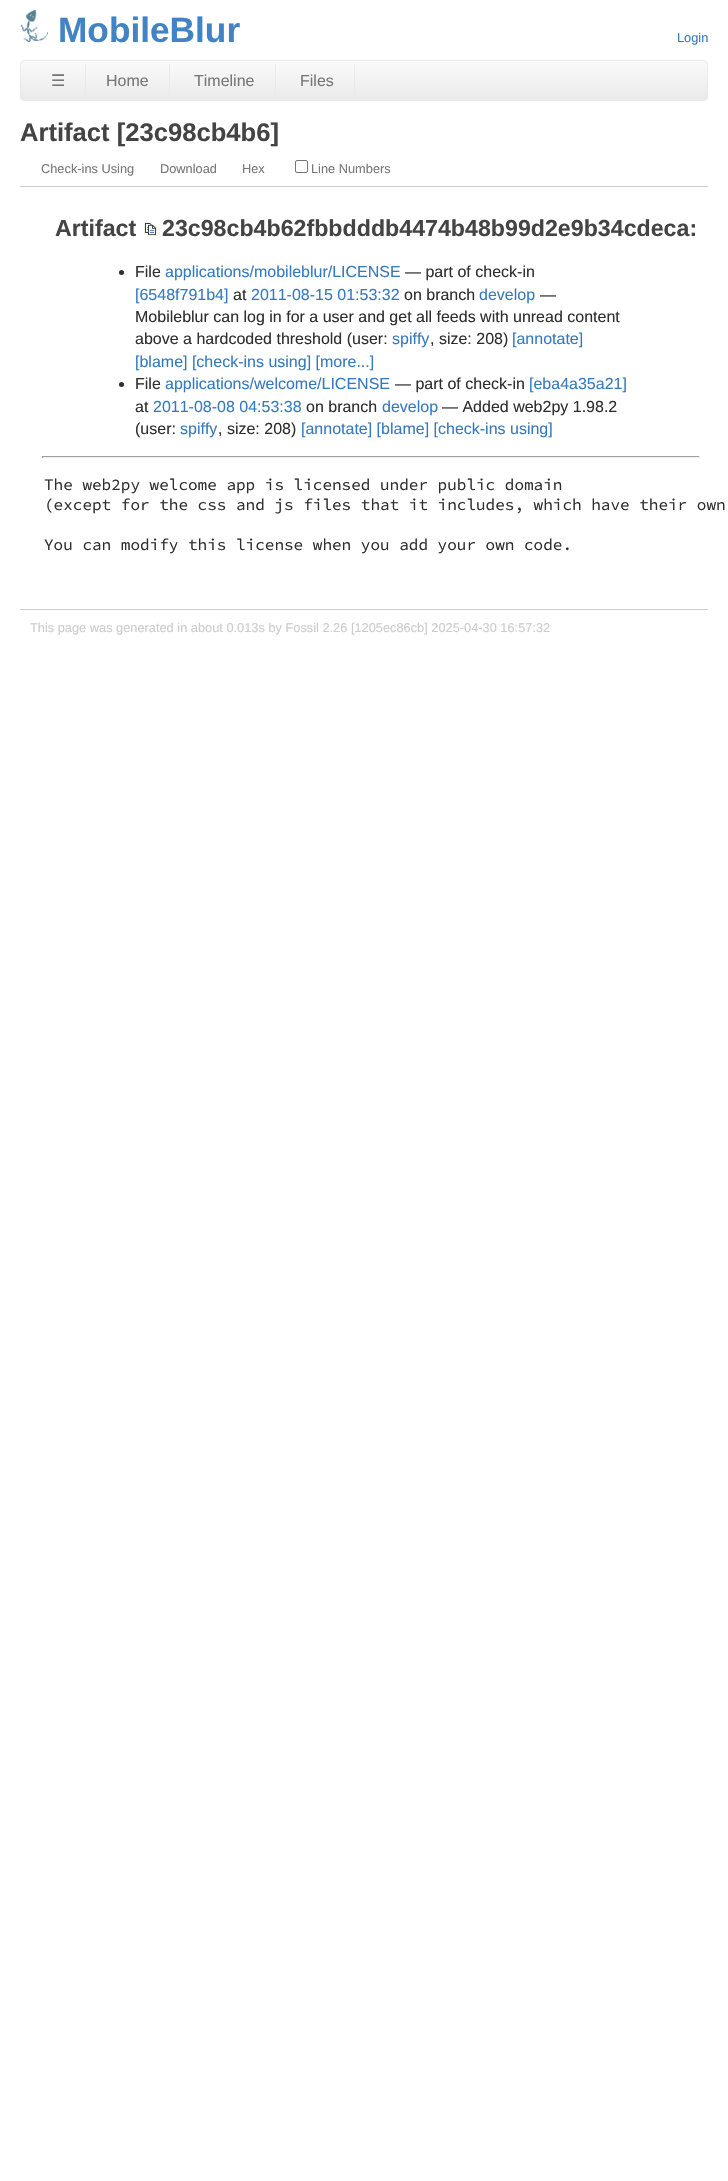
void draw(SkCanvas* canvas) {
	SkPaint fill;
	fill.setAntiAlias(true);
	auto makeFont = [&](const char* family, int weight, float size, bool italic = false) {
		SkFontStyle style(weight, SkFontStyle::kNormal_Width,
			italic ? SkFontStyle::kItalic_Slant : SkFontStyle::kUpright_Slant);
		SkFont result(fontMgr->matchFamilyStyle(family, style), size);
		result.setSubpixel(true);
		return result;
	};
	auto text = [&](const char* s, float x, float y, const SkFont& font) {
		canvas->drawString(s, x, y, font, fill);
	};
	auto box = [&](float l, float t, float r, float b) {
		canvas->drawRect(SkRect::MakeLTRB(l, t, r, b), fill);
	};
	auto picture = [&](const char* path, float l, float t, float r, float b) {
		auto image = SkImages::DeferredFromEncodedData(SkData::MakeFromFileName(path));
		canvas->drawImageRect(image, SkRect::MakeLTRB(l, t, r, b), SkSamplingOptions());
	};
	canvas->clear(0xFFFFFFFF);
	picture("image0.png", 20, 10, 48, 42);
	canvas->save();
	canvas->clipPath(SkPathBuilder().moveTo(25, 60).lineTo(703, 60).cubicTo(706, 60, 708, 62, 708, 65).lineTo(708, 96).cubicTo(708, 99, 706, 101, 703, 101).lineTo(25, 101).cubicTo(22, 101, 20, 99, 20, 96).lineTo(20, 65).cubicTo(20, 62, 22, 60, 25, 60).close().detach(), true);
	{
		const SkColor colors[] = {0xFFFAFAFA, 0xFFEAEAEA};
		const float stops[] = {0, 1};
		const SkPoint ends[] = {{364, 61}, {364, 100}};
		fill.setShader(SkGradientShader::MakeLinear(ends, colors, stops, 2, SkTileMode::kClamp));
		fill.setAlpha(255);
	}
	box(20, 61, 708, 100);
	canvas->restore();
	fill.setStyle(SkPaint::kStroke_Style);
	fill.setStrokeWidth(1);
	fill.setShader(nullptr);
	fill.setColor(0xFFEAEAEA);
	canvas->drawRoundRect(SkRect::MakeLTRB(20.5f, 60.5f, 707.5f, 100.5f), 4.5f, 4.5f, fill);
	fill.setStyle(SkPaint::kFill_Style);
	box(85, 64, 86, 97);
	box(169, 64, 170, 97);
	box(275, 64, 276, 97);
	box(354, 64, 355, 97);
	fill.setColor(0xFFCCCCCC);
	box(20, 186, 708, 187);
	fill.setStyle(SkPaint::kStroke_Style);
	fill.setColor(0xFF767676);
	canvas->drawRoundRect(SkRect::MakeLTRB(295.5f, 160.5f, 307.5f, 172.5f), 1.5f, 1.5f, fill);
	picture("image1.png", 144, 222, 157, 236);
	fill.setStyle(SkPaint::kFill_Style);
	fill.setColor(0xFF2E2E2E);
	canvas->drawCircle(121.5f, 272.5f, 2.5f, fill);
	canvas->drawCircle(121.5f, 384.5f, 2.5f, fill);
	fill.setColor(0xFF9F9F9F);
	box(42, 456, 700, 457);
	fill.setColor(0xFFEEEEEE);
	box(699, 456, 700, 458);
	box(42, 457, 700, 458);
	fill.setColor(0xFF9F9F9F);
	box(42, 456, 43, 458);
	fill.setColor(0xFFCCCCCC);
	box(20, 609, 708, 610);
	auto font1 = makeFont("Liberation Sans", 700, 35.25f);
	fill.setColor(0xFF4183C4);
	text("MobileBlur", 58, 42, font1);
	auto font2 = makeFont("Liberation Sans", 400, 12.8f);
	fill.setColor(0xFF3779BF);
	text("Login", 677, 42, font2);
	auto font3 = makeFont("DejaVu Sans", 400, 16);
	fill.setColor(0xFF777777);
	text("☰", 51, 86, font3);
	auto font4 = makeFont("Liberation Sans", 400, 16);
	text("Home", 106, 86, font4);
	text("Timeline", 194, 86, font4);
	text("Files", 300, 86, font4);
	auto font5 = makeFont("Liberation Sans", 700, 25.6f);
	fill.setColor(0xFF444444);
	text("Artifact [23c98cb4b6]", 20, 141, font5);
	fill.setColor(0xFF777777);
	text("Check-ins Using", 41, 173, font2);
	text("Download", 160, 173, font2);
	text("Hex", 242, 173, font2);
	text("Line Numbers", 311, 173, font2);
	auto font6 = makeFont("Liberation Sans", 700, 23.2f);
	fill.setColor(0xFF444444);
	text("Artifact", 55, 236, font6);
	text("23c98cb4b62fbbdddb4474b48b99d2e9b34cdeca:", 162, 236, font6);
	fill.setColor(0xFF2E2E2E);
	text("File", 135, 277, font4);
	fill.setColor(0xFF3779BF);
	text("applications/mobileblur/LICENSE", 165, 277, font4);
	fill.setColor(0xFF2E2E2E);
	text("— part of check-in", 405, 277, font4);
	fill.setColor(0xFF3779BF);
	text("[6548f791b4]", 135, 300, font4);
	fill.setColor(0xFF2E2E2E);
	text("at", 233, 300, font4);
	fill.setColor(0xFF3779BF);
	text("2011-08-15 01:53:32", 251, 300, font4);
	fill.setColor(0xFF2E2E2E);
	text("on branch", 404, 300, font4);
	fill.setColor(0xFF3779BF);
	text("develop", 479, 300, font4);
	fill.setColor(0xFF2E2E2E);
	text("—", 540, 300, font4);
	text("Mobileblur can log in for a user and get all feeds with unread content", 135, 322, font4);
	text("above a hardcoded threshold (user:", 135, 344, font4);
	fill.setColor(0xFF3779BF);
	text("spiffy", 392, 344, font4);
	fill.setColor(0xFF2E2E2E);
	text(", size: 208)", 430, 344, font4);
	fill.setColor(0xFF3779BF);
	text("[annotate]", 512, 344, font4);
	text("[blame] [check-ins using] [more...]", 135, 367, font4);
	fill.setColor(0xFF2E2E2E);
	text("File", 135, 389, font4);
	fill.setColor(0xFF3779BF);
	text("applications/welcome/LICENSE", 165, 389, font4);
	fill.setColor(0xFF2E2E2E);
	text("— part of check-in", 395, 389, font4);
	fill.setColor(0xFF3779BF);
	text("[eba4a35a21]", 529, 389, font4);
	fill.setColor(0xFF2E2E2E);
	text("at", 135, 412, font4);
	fill.setColor(0xFF3779BF);
	text("2011-08-08 04:53:38", 153, 412, font4);
	fill.setColor(0xFF2E2E2E);
	text("on branch", 306, 412, font4);
	fill.setColor(0xFF3779BF);
	text("develop", 382, 412, font4);
	fill.setColor(0xFF2E2E2E);
	text("— Added web2py 1.98.2", 442, 412, font4);
	text("(user:", 135, 434, font4);
	fill.setColor(0xFF3779BF);
	text("spiffy", 180, 434, font4);
	fill.setColor(0xFF2E2E2E);
	text(", size: 208)", 218, 434, font4);
	fill.setColor(0xFF3779BF);
	text("[annotate] [blame] [check-ins using]", 301, 434, font4);
	auto font7 = makeFont("Source Code Pro", 400, 16);
	fill.setColor(0xFF2E2E2E);
	text("The web2py welcome app is licensed under public domain", 44, 490, font7);
	text("(except for the css and js files that it includes, which have their own", 44, 510, font7);
	text("You can modify this license when you add your own code.", 44, 550, font7);
	fill.setColor(0xFFCCCCCC);
	text("This page was generated in about 0.013s by Fossil 2.26 [1205ec86cb] 2025-04-30 16:57:32", 30, 632, font2);
}
